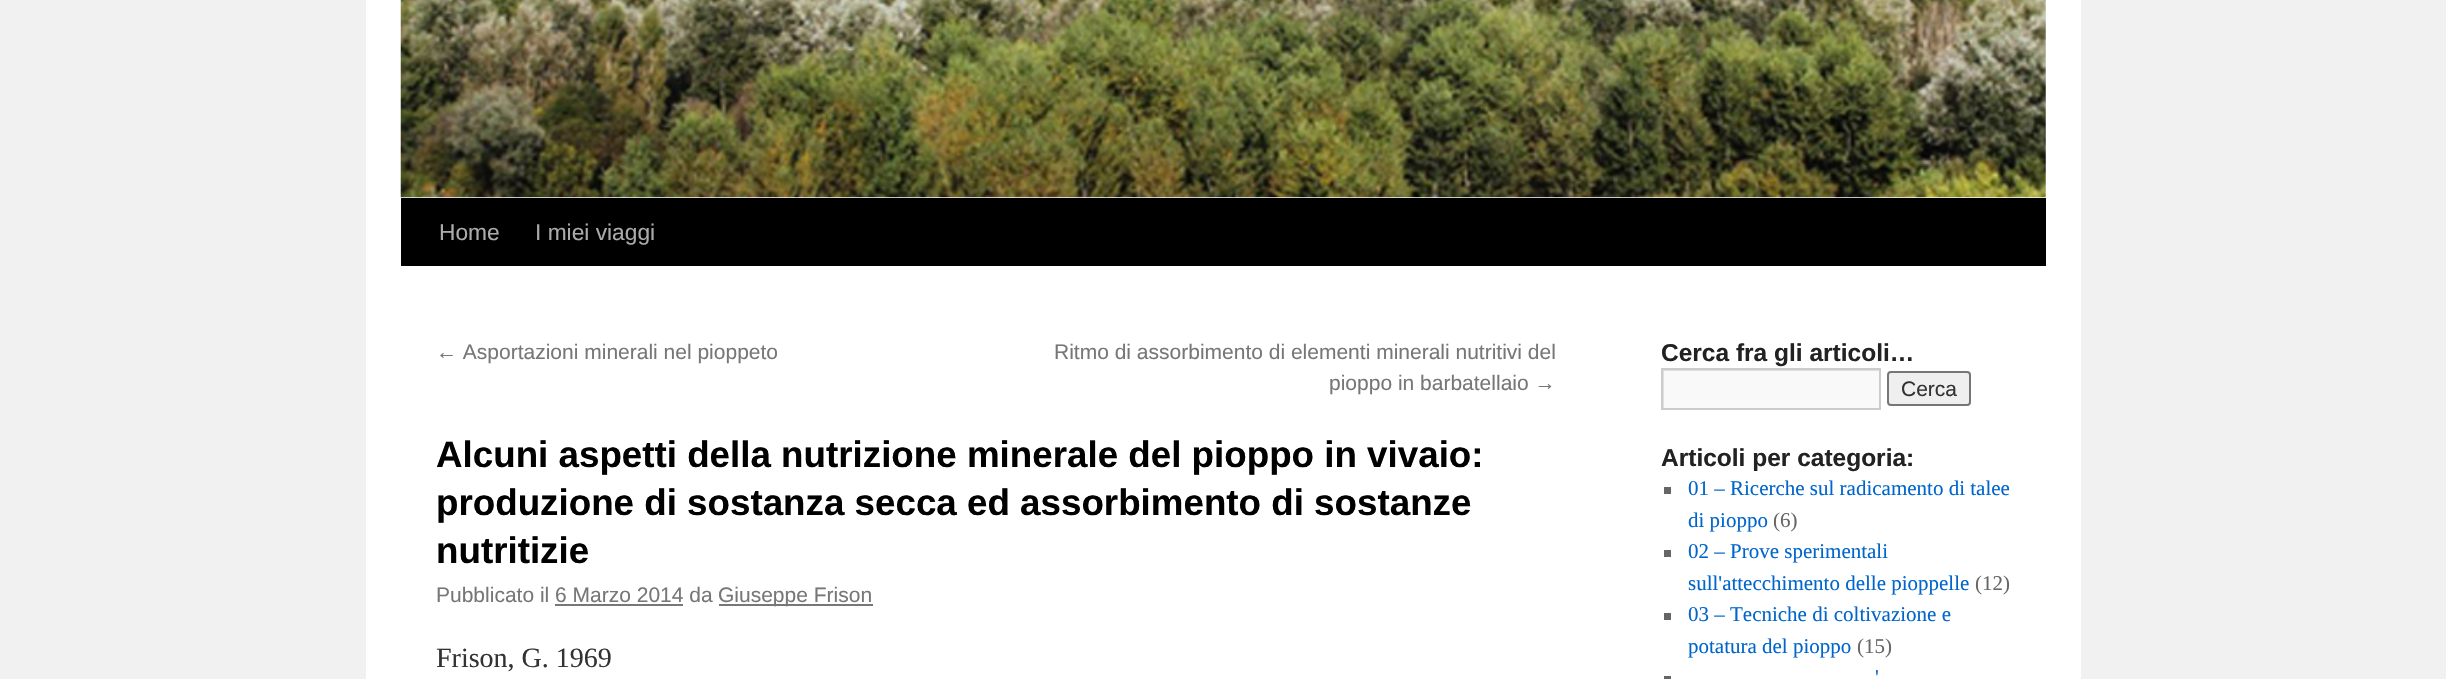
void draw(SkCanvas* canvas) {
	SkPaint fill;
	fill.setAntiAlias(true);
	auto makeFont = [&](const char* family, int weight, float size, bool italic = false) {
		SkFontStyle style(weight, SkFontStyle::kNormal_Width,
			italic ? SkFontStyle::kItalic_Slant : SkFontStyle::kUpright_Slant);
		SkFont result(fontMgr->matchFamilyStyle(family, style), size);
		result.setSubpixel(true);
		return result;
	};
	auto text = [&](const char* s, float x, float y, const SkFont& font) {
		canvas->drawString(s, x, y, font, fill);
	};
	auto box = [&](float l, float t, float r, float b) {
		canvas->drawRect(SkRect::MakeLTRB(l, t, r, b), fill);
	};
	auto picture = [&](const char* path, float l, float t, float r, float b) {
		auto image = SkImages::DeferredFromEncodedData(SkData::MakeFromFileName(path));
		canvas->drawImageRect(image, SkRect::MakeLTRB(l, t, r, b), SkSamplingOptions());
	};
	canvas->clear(0xFFF1F1F1);
	fill.setColor(0xFFFFFFFF);
	box(366, 0, 2081, 679);
	fill.setColor(0xFF000000);
	box(401, 198, 2046, 266);
	picture("image0.png", 400, 0, 2046, 198);
	fill.setColor(0xFF777777);
	box(719, 604, 873, 606);
	box(555, 604, 683, 606);
	fill.setColor(0xFFF9F9F9);
	box(1664, 371, 1879, 408);
	canvas->save();
	canvas->clipRect(SkRect::MakeLTRB(1663, 369, 1880, 408));
	fill.setColor(0xFFE0E0E0);
	canvas->drawPath(SkPathBuilder(SkPathFillType::kEvenOdd).moveTo(1489, 196).lineTo(2053, 196).lineTo(2053, 581).lineTo(1489, 581).close().moveTo(1664, 371).lineTo(1881, 371).lineTo(1881, 410).lineTo(1664, 410).close().detach(), fill);
	canvas->restore();
	fill.setStyle(SkPaint::kStroke_Style);
	fill.setStrokeWidth(2);
	fill.setColor(0xFFCCCCCC);
	canvas->drawRect(SkRect::MakeLTRB(1662, 369, 1880, 409), fill);
	fill.setStyle(SkPaint::kFill_Style);
	fill.setColor(0xFFEFEFEF);
	canvas->drawRoundRect(SkRect::MakeLTRB(1888, 372, 1970, 405), 3, 3, fill);
	fill.setStyle(SkPaint::kStroke_Style);
	fill.setColor(0xFF767676);
	canvas->drawRoundRect(SkRect::MakeLTRB(1888, 372, 1970, 405), 3, 3, fill);
	fill.setStyle(SkPaint::kFill_Style);
	fill.setColor(0xFF666666);
	box(1664, 487, 1671, 494);
	box(1664, 550, 1671, 557);
	box(1664, 613, 1671, 620);
	box(1664, 676, 1671, 679);
	auto font1 = makeFont("Liberation Sans", 400, 22.75f);
	fill.setColor(0xFFAAAAAA);
	text("Home", 439, 240, font1);
	text("I miei viaggi", 535, 240, font1);
	auto font2 = makeFont("Liberation Sans", 400, 21);
	fill.setColor(0xFF777777);
	text("← Asportazioni minerali nel pioppeto", 436, 359, font2);
	text("Ritmo di assorbimento di elementi minerali nutritivi del", 1054, 359, font2);
	text("pioppo in barbatellaio →", 1329, 390, font2);
	auto font3 = makeFont("Liberation Sans", 700, 36.75f);
	fill.setColor(0xFF000000);
	text("Alcuni aspetti della nutrizione minerale del pioppo in vivaio:", 436, 467, font3);
	text("produzione di sostanza secca ed assorbimento di sostanze", 436, 515, font3);
	text("nutritizie", 436, 563, font3);
	fill.setColor(0xFF777777);
	text("Pubblicato il 6 Marzo 2014 da", 436, 602, font2);
	text("Giuseppe Frison", 718, 602, font2);
	auto font4 = makeFont("Liberation Serif", 400, 28);
	fill.setColor(0xFF333333);
	text("Frison, G. 1969", 436, 667, font4);
	auto font5 = makeFont("Liberation Sans", 700, 24.5f);
	fill.setColor(0xFF222222);
	text("Cerca fra gli articoli…", 1661, 361, font5);
	fill.setColor(0xFF333333);
	text("Cerca", 1901, 396, font2);
	fill.setColor(0xFF222222);
	text("Articoli per categoria:", 1661, 466, font5);
	auto font6 = makeFont("Liberation Serif", 400, 21);
	fill.setColor(0xFF0066CC);
	text("01 – Ricerche sul radicamento di talee", 1688, 495, font6);
	text("di pioppo", 1688, 527, font6);
	fill.setColor(0xFF666666);
	text("(6)", 1773, 527, font6);
	fill.setColor(0xFF0066CC);
	text("02 – Prove sperimentali", 1688, 558, font6);
	text("sull'attecchimento delle pioppelle", 1688, 590, font6);
	fill.setColor(0xFF666666);
	text("(12)", 1975, 590, font6);
	fill.setColor(0xFF0066CC);
	text("03 – Tecniche di coltivazione e", 1688, 621, font6);
	text("potatura del pioppo", 1688, 653, font6);
	fill.setColor(0xFF666666);
	text("(15)", 1857, 653, font6);
	fill.setColor(0xFF0066CC);
	text("'", 1875, 684, font6);
}
